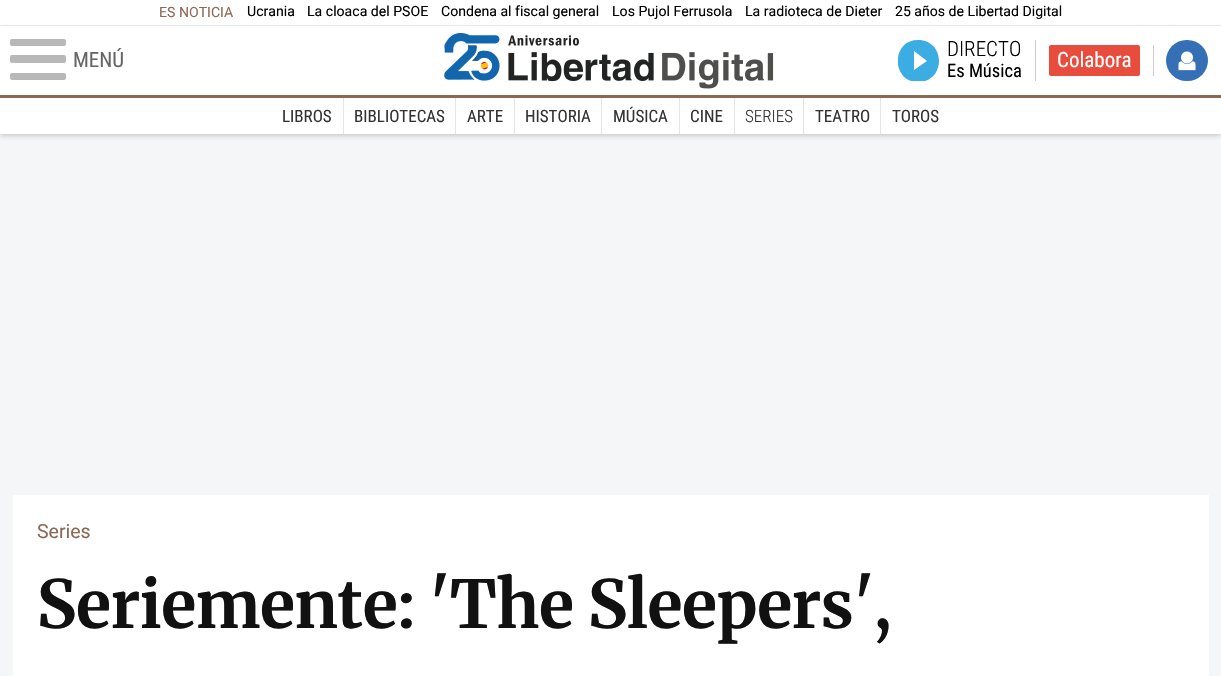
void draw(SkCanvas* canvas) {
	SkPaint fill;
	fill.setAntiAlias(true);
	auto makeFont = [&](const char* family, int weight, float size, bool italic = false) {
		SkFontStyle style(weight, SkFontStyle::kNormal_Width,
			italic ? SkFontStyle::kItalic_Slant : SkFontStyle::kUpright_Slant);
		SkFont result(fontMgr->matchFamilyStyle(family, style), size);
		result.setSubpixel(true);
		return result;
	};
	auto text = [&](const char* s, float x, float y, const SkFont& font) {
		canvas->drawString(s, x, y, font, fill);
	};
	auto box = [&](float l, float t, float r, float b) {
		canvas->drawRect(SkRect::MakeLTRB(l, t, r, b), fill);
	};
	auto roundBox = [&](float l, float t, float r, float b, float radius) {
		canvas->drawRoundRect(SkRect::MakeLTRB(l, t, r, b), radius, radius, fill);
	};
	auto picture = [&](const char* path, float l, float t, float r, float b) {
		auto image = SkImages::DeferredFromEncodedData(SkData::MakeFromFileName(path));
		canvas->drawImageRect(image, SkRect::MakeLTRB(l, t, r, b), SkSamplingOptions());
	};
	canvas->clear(0xFFF5F6F8);
	fill.setColor(0xFFFFFFFF);
	box(0, 0, 1221, 25);
	fill.setColor(0xFFECF0F1);
	box(0, 25, 1221, 26);
	fill.setColor(0x70323232);
	fill.setMaskFilter(SkMaskFilter::MakeBlur(kNormal_SkBlurStyle, 2.5f));
	canvas->drawRect(SkRect::MakeLTRB(0, 29, 1221, 100), fill);
	fill.setMaskFilter(nullptr);
	fill.setColor(0xFFFFFFFF);
	box(0, 26, 1221, 95);
	fill.setColor(0xFF8C6954);
	box(0, 95, 1221, 98);
	fill.setColor(0xFFB8B8B8);
	roundBox(10, 39, 66, 46, 2);
	roundBox(10, 55, 66, 63, 2);
	roundBox(10, 73, 66, 80, 2);
	picture("image0.png", 444, 33, 774, 89);
	fill.setColor(0xFFCCCCCC);
	box(1035, 40, 1036, 81);
	canvas->save();
	canvas->clipRect(SkRect::MakeLTRB(898, 40, 939, 81));
	fill.setColor(0xFF3BADE3);
	canvas->drawPath(SkPathBuilder().moveTo(918, 40).cubicTo(891, 40, 891, 82, 918, 82).cubicTo(946, 82, 946, 40, 918, 40).close().moveTo(914, 70).lineTo(914, 51).lineTo(927, 61).close().detach(), fill);
	canvas->restore();
	fill.setColor(0xFFCCCCCC);
	box(1153, 45, 1154, 76);
	fill.setColor(0xFFE84C3D);
	roundBox(1049, 45, 1140, 76, 2);
	fill.setColor(0xFF3570B6);
	roundBox(1166, 40, 1208, 81, 20.5f);
	picture("image1.png", 1178, 51, 1196, 71);
	fill.setColor(0x38323232);
	fill.setMaskFilter(SkMaskFilter::MakeBlur(kNormal_SkBlurStyle, 2.5f));
	canvas->drawRect(SkRect::MakeLTRB(0, 100, 1221, 136), fill);
	fill.setMaskFilter(nullptr);
	fill.setColor(0xFFFFFFFF);
	box(0, 98, 1221, 134);
	fill.setColor(0xFFE5E5E5);
	box(343, 98, 344, 134);
	box(455, 98, 456, 134);
	box(514, 98, 515, 134);
	box(601, 98, 602, 134);
	box(679, 98, 680, 134);
	box(734, 98, 735, 134);
	box(803, 98, 804, 134);
	box(880, 98, 881, 134);
	fill.setColor(0xFFFFFFFF);
	box(13, 495, 1209, 676);
	auto font1 = makeFont("Roboto", 400, 14.1f);
	fill.setColor(0xFF8C6954);
	text("ES NOTICIA", 159, 17, font1);
	fill.setColor(0xFF000000);
	text("Ucrania", 247, 16, font1);
	text("La cloaca del PSOE", 307, 16, font1);
	text("Condena al fiscal general", 441, 16, font1);
	text("Los Pujol Ferrusola", 612, 16, font1);
	text("La radioteca de Dieter", 745, 16, font1);
	text("25 años de Libertad Digital", 895, 16, font1);
	auto font2 = makeFont("Roboto Condensed", 400, 21);
	fill.setColor(0xFF666666);
	text("MENÚ", 73, 67, font2);
	auto font3 = makeFont("Roboto Condensed", 300, 21);
	fill.setColor(0xFF000000);
	text("DIRECTO", 947, 56, font3);
	auto font4 = makeFont("Roboto Condensed", 400, 18.5f);
	text("Es Música", 947, 77, font4);
	fill.setColor(0xFFFFFFFF);
	text("Colabora", 1057, 67, font2);
	auto font5 = makeFont("Roboto Condensed", 400, 17);
	fill.setColor(0xFF333333);
	text("LIBROS", 282, 122, font5);
	text("BIBLIOTECAS", 354, 122, font5);
	text("ARTE", 467, 122, font5);
	text("HISTORIA", 525, 122, font5);
	text("MÚSICA", 613, 122, font5);
	text("CINE", 690, 122, font5);
	auto font6 = makeFont("Roboto Condensed", 300, 17);
	text("SERIES", 745, 122, font6);
	text("TEATRO", 815, 122, font5);
	text("TOROS", 892, 122, font5);
	auto font7 = makeFont("Roboto", 400, 19.5f);
	fill.setColor(0xFF8C6954);
	text("Series", 37, 538, font7);
	auto font8 = makeFont("Merriweather", 700, 66.1f);
	fill.setColor(0xFF111111);
	text("Seriemente: 'The Sleepers',", 37, 628, font8);
}
